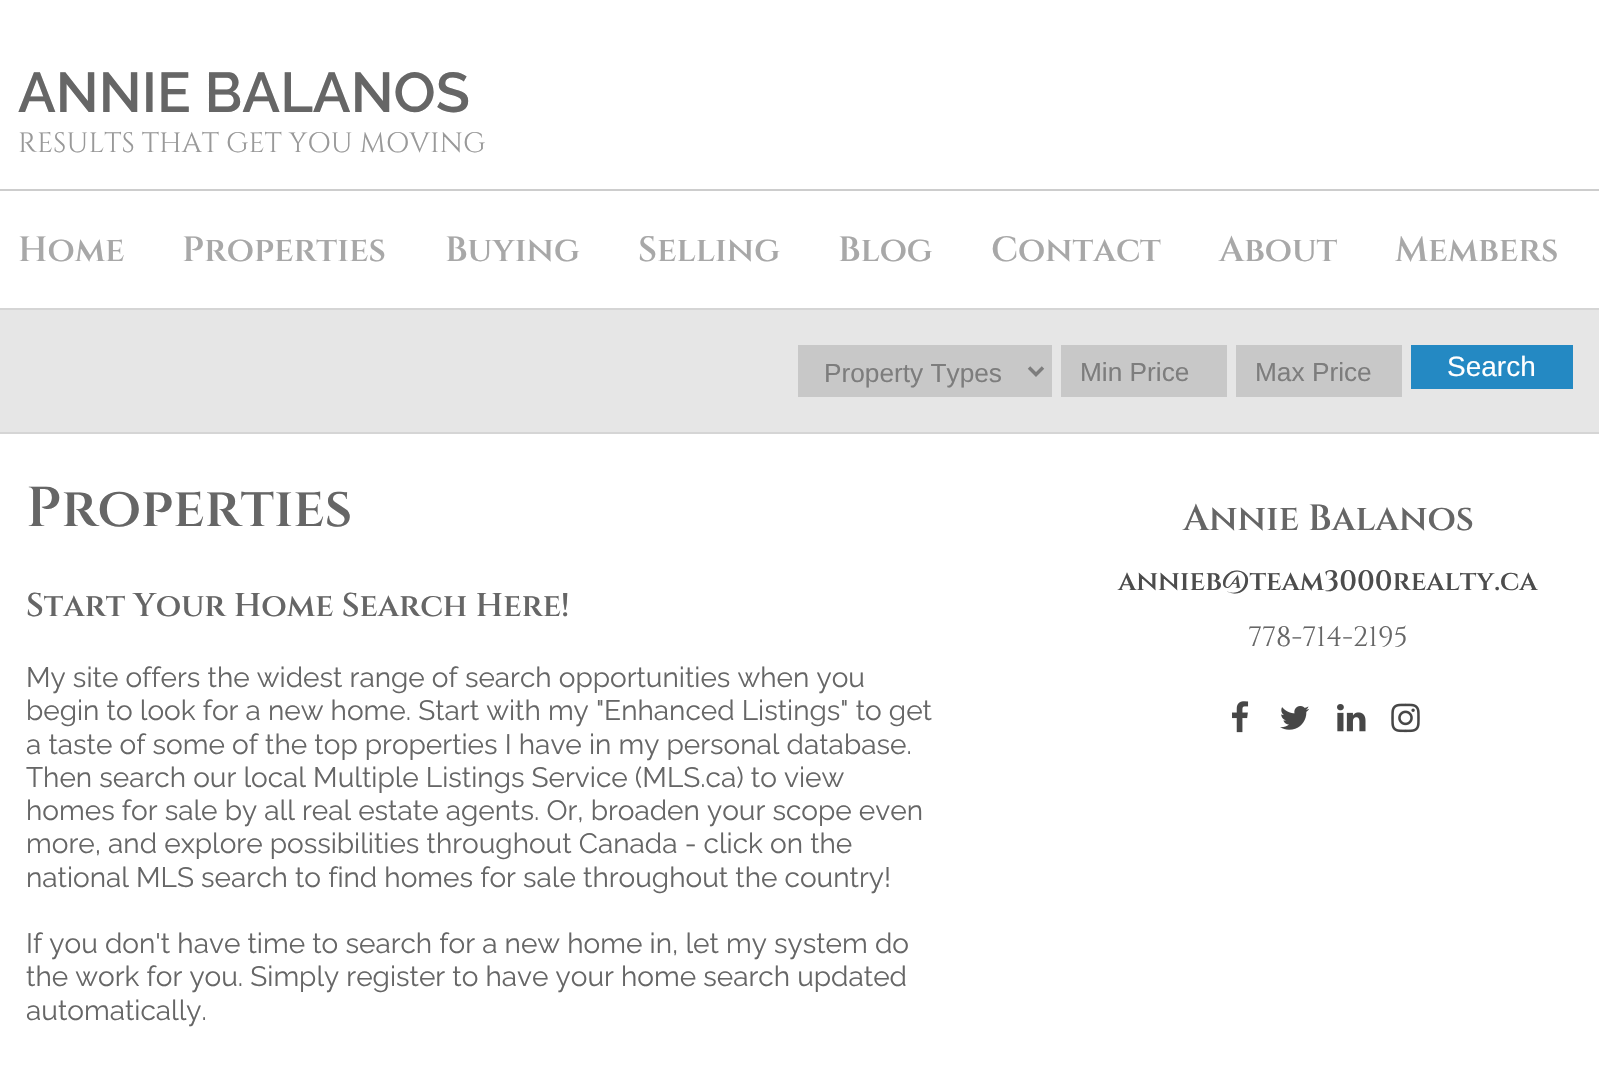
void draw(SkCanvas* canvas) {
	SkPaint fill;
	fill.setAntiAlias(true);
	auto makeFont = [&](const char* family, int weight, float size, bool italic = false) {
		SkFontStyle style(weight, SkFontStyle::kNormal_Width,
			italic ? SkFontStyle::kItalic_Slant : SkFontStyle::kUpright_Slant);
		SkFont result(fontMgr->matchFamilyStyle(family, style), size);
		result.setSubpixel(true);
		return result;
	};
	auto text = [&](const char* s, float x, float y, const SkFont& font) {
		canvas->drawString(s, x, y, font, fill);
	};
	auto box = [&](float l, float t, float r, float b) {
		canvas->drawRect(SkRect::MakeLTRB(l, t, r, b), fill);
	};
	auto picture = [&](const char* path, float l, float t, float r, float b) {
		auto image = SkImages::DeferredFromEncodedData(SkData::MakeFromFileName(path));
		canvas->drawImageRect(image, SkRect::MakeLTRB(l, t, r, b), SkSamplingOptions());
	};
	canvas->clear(0xFFFFFFFF);
	fill.setColor(0xFFCDCDCD);
	box(0, 189, 1599, 191);
	fill.setColor(0xFFE6E6E6);
	box(0, 310, 1599, 432);
	fill.setColor(0xFFD5D5D5);
	box(0, 308, 1599, 310);
	box(0, 432, 1599, 434);
	fill.setColor(0xFFC8C8C8);
	box(798, 345, 1052, 397);
	fill.setStyle(SkPaint::kStroke_Style);
	fill.setStrokeWidth(3.5f);
	fill.setColor(0xFF7D7D7D);
	canvas->drawPath(SkPathBuilder().moveTo(1029, 367.5f).lineTo(1036, 374.5f).lineTo(1043, 367.5f).detach(), fill);
	fill.setStyle(SkPaint::kFill_Style);
	fill.setColor(0xFFC8C8C8);
	box(1061, 345, 1227, 397);
	box(1236, 345, 1402, 397);
	fill.setColor(0xFF2489C3);
	box(1411, 345, 1573, 389);
	picture("image0.png", 1232, 701, 1249, 733);
	picture("image1.png", 1280, 706, 1310, 730);
	picture("image2.png", 1337, 704, 1366, 732);
	picture("image3.png", 1391, 703, 1420, 733);
	auto font1 = makeFont("Raleway", 600, 56);
	fill.setColor(0xFF666666);
	text("ANNIE BALANOS", 18, 112, font1);
	auto font2 = makeFont("Cinzel", 400, 28);
	fill.setColor(0xFF999999);
	text("RESULTS THAT GET YOU MOVING", 18, 152, font2);
	auto font3 = makeFont("Cinzel", 600, 35);
	fill.setColor(0xFFA8A8A8);
	text("Home", 18, 261, font3);
	text("Properties", 182, 261, font3);
	text("Buying", 445, 261, font3);
	text("Selling", 638, 261, font3);
	text("Blog", 838, 261, font3);
	text("Contact", 991, 261, font3);
	text("About", 1219, 261, font3);
	text("Members", 1395, 261, font3);
	auto font4 = makeFont("Liberation Sans", 400, 26.25f);
	fill.setColor(0xFF7D7D7D);
	text("Property Types", 824, 382, font4);
	text("Min Price", 1080, 381, font4);
	text("Max Price", 1255, 381, font4);
	auto font5 = makeFont("Liberation Sans", 400, 28);
	fill.setColor(0xFFFFFFFF);
	text("Search", 1447, 376, font5);
	auto font6 = makeFont("Cinzel", 600, 56);
	fill.setColor(0xFF666666);
	text("Properties", 26, 526, font6);
	auto font7 = makeFont("Cinzel", 600, 32.75f);
	text("Start Your Home Search Here!", 26, 616, font7);
	auto font8 = makeFont("Raleway", 400, 28);
	text("My site offers the widest range of search opportunities when you", 26, 687, font8);
	text("begin to look for a new home. Start with my \"Enhanced Listings\" to get", 26, 720, font8);
	text("a taste of some of the top properties I have in my personal database.", 26, 754, font8);
	text("Then search our local Multiple Listings Service (MLS.ca) to view", 26, 787, font8);
	text("homes for sale by all real estate agents. Or, broaden your scope even", 26, 820, font8);
	text("more, and explore possibilities throughout Canada - click on the", 26, 853, font8);
	text("national MLS search to find homes for sale throughout the country!", 26, 887, font8);
	text("If you don't have time to search for a new home in, let my system do", 26, 953, font8);
	text("the work for you. Simply register to have your home search updated", 26, 986, font8);
	text("automatically.", 26, 1020, font8);
	auto font9 = makeFont("Cinzel", 600, 36.5f);
	text("Annie Balanos", 1183, 530, font9);
	auto font10 = makeFont("Cinzel", 600, 28);
	fill.setColor(0xFF4C4C4C);
	text("annieb@team3000realty.ca", 1118, 590, font10);
	fill.setColor(0xFF666666);
	text("778-714-2195", 1248, 646, font2);
}
